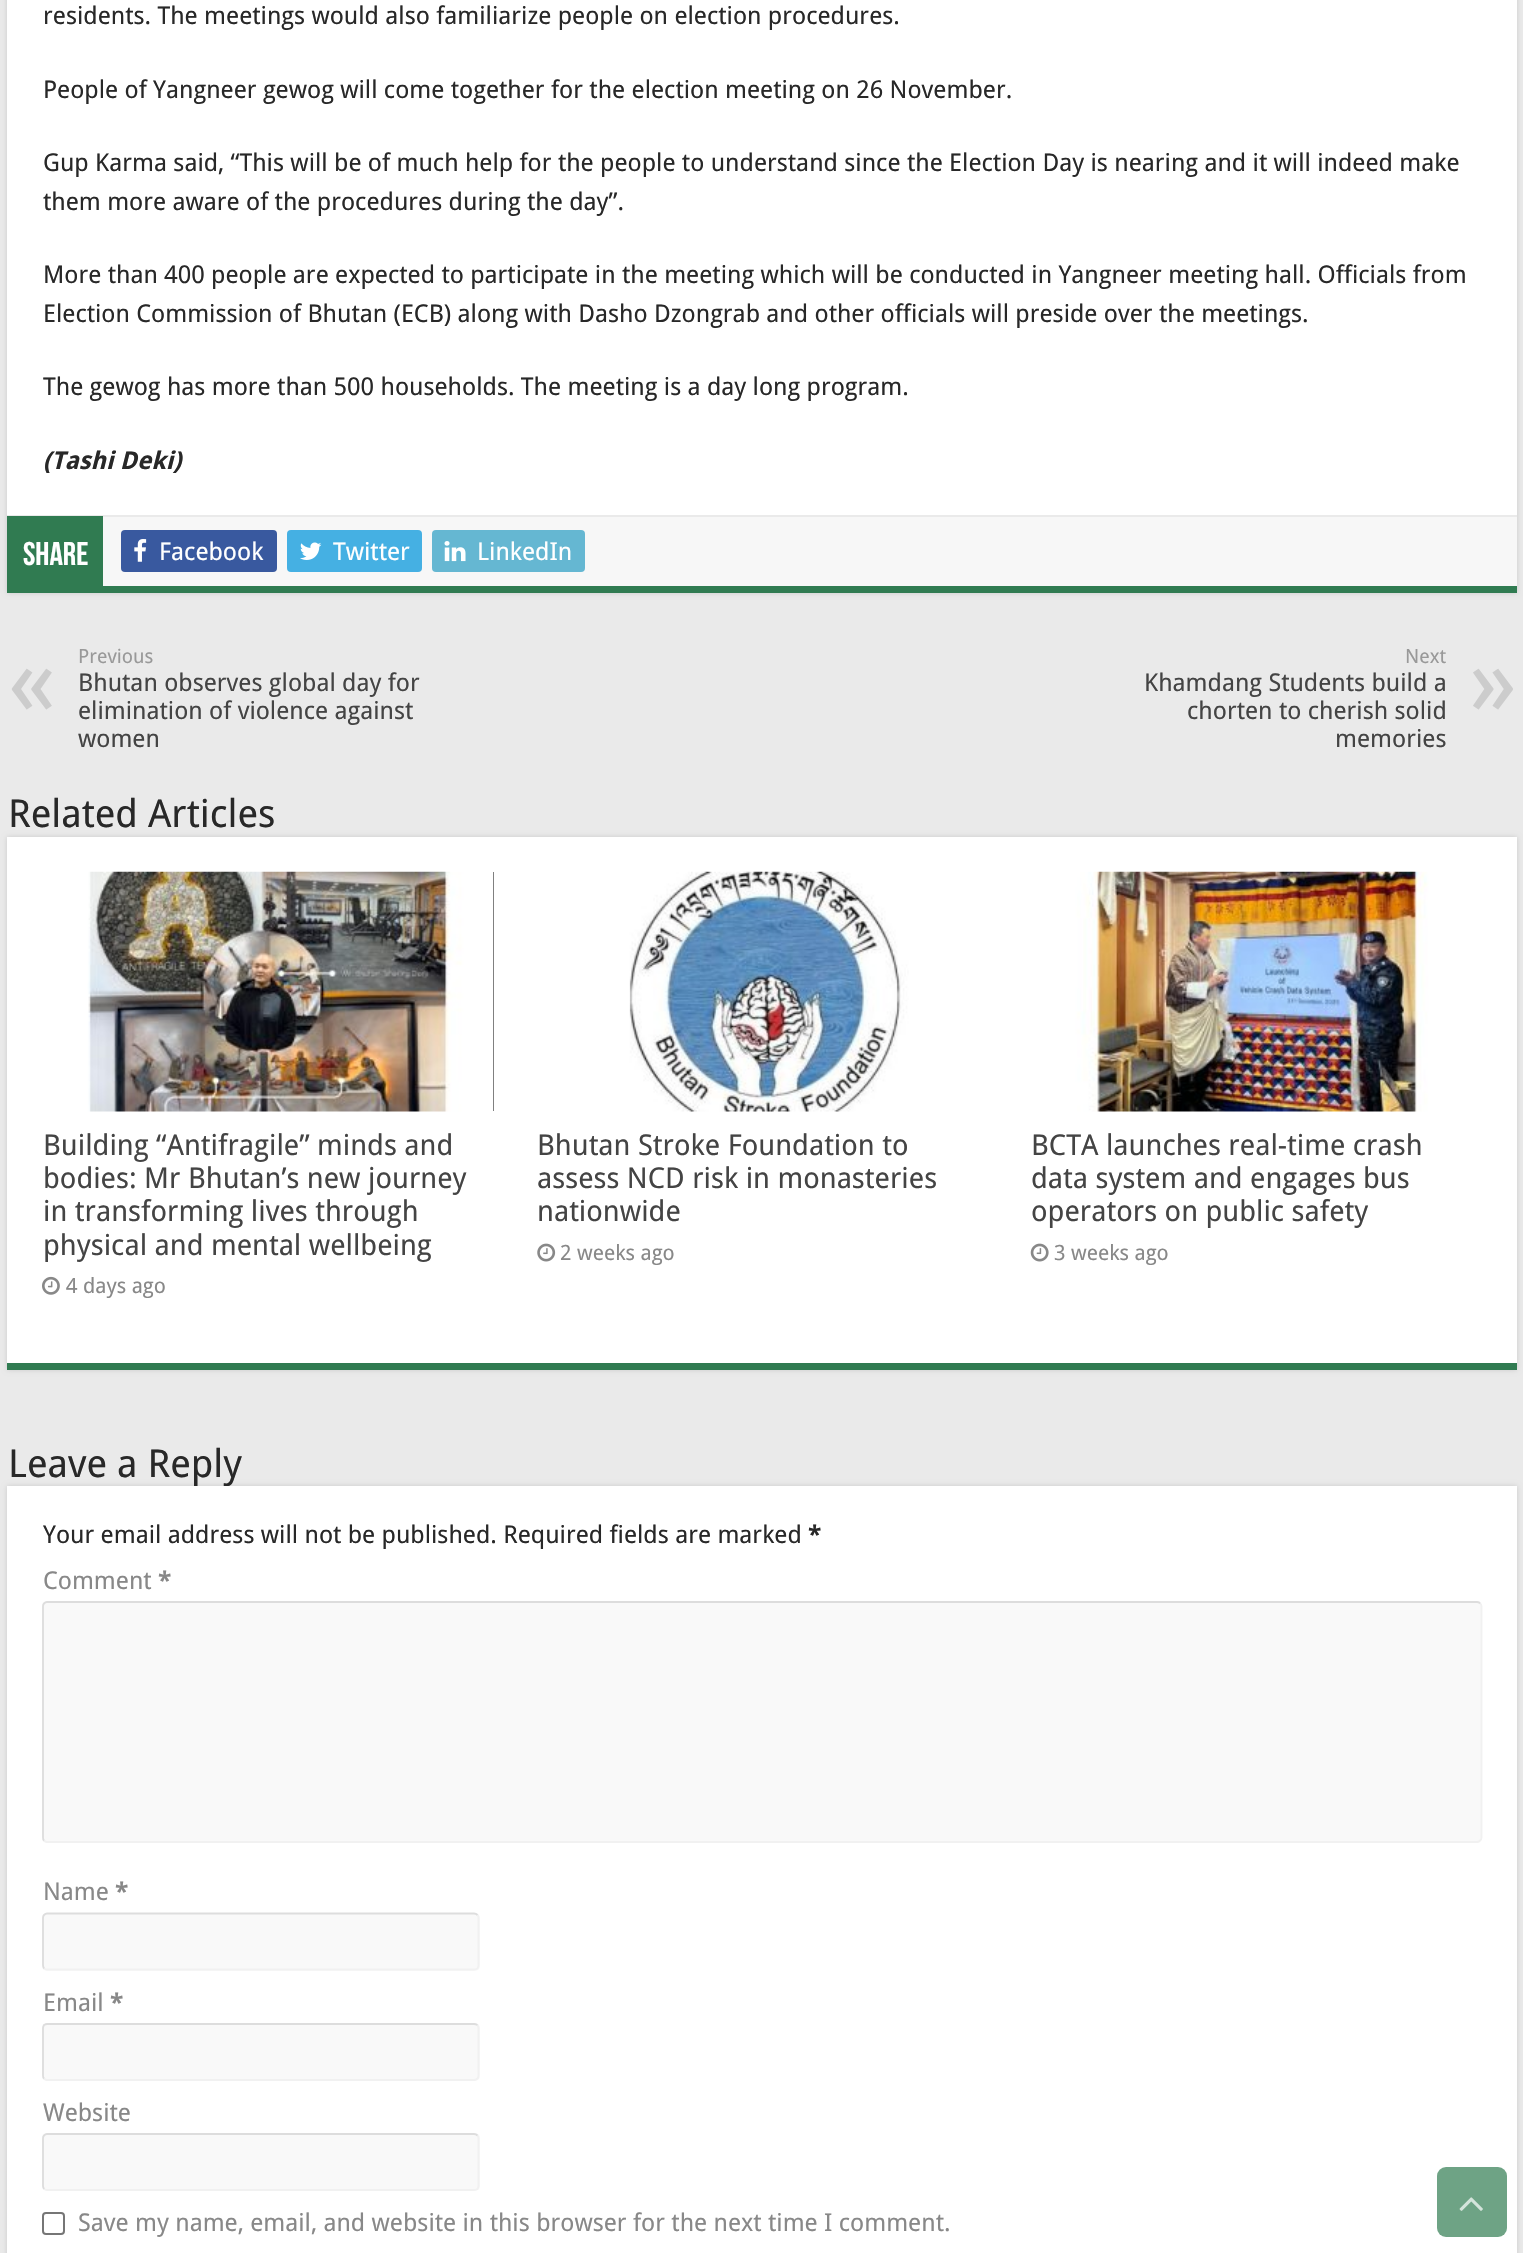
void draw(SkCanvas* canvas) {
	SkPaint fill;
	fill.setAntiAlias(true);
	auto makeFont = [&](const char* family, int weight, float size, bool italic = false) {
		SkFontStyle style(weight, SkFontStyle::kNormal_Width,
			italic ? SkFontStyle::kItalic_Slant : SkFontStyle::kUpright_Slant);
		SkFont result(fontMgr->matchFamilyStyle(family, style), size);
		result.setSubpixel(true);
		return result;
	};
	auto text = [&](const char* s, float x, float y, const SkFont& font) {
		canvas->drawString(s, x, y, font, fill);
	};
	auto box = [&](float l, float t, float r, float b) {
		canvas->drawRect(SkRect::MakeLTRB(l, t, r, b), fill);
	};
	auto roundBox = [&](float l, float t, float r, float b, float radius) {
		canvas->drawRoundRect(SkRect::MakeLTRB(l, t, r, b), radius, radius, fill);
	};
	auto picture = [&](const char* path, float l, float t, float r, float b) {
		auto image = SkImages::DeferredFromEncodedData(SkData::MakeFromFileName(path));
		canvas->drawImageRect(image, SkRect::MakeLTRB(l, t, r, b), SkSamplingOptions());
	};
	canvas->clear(0xFFEAEAEA);
	fill.setColor(0xFFCACACA);
	fill.setMaskFilter(SkMaskFilter::MakeBlur(kNormal_SkBlurStyle, 2.5f));
	canvas->drawRect(SkRect::MakeLTRB(7, -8, 1517, 593), fill);
	fill.setMaskFilter(nullptr);
	fill.setColor(0xFFFFFFFF);
	box(7, 0, 1517, 515);
	fill.setColor(0xFF307B51);
	box(7, 586, 1517, 593);
	fill.setColor(0xFFF7F7F7);
	box(103, 517, 1517, 586);
	fill.setColor(0xFFEAEAEA);
	box(7, 515, 1517, 517);
	fill.setColor(0xFF307B51);
	box(7, 516, 103, 586);
	fill.setColor(0xFF39599F);
	roundBox(121, 530, 277, 572, 4);
	picture("image0.png", 134, 539, 147, 562);
	fill.setColor(0xFF45B0E3);
	roundBox(287, 530, 422, 572, 4);
	picture("image1.png", 300, 542, 322, 560);
	fill.setColor(0xFF65B7D2);
	roundBox(432, 530, 585, 572, 4);
	picture("image2.png", 444, 541, 466, 562);
	fill.setColor(0xFFCACACA);
	fill.setMaskFilter(SkMaskFilter::MakeBlur(kNormal_SkBlurStyle, 2.5f));
	canvas->drawRect(SkRect::MakeLTRB(7, 837, 1517, 1370), fill);
	fill.setMaskFilter(nullptr);
	fill.setColor(0xFFFFFFFF);
	box(7, 837, 1517, 1363);
	fill.setColor(0xFF307B51);
	box(7, 1363, 1517, 1370);
	fill.setColor(0xFF000000);
	box(493, 872, 494, 1111);
	picture("image3.png", 42, 871, 494, 1112);
	picture("image4.png", 42, 1276, 60, 1295);
	picture("image5.png", 537, 871, 987, 1112);
	picture("image6.png", 537, 1243, 556, 1262);
	picture("image7.png", 1031, 871, 1482, 1112);
	picture("image8.png", 1030, 1243, 1049, 1262);
	fill.setColor(0xFFCACACA);
	fill.setMaskFilter(SkMaskFilter::MakeBlur(kNormal_SkBlurStyle, 2.5f));
	canvas->drawRect(SkRect::MakeLTRB(7, 1486, 1517, 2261), fill);
	fill.setMaskFilter(nullptr);
	auto font1 = makeFont("Droid Sans", 400, 24.5f);
	fill.setColor(0xFF282828);
	text("residents. The meetings would also familiarize people on election procedures.", 43, 24, font1);
	text("People of Yangneer gewog will come together for the election meeting on 26 November.", 43, 98, font1);
	text("Gup Karma said, “This will be of much help for the people to understand since the Election Day is nearing and it will indeed make", 43, 171, font1);
	text("them more aware of the procedures during the day”.", 43, 210, font1);
	text("More than 400 people are expected to participate in the meeting which will be conducted in Yangneer meeting hall. Officials from", 43, 283, font1);
	text("Election Commission of Bhutan (ECB) along with Dasho Dzongrab and other officials will preside over the meetings.", 43, 322, font1);
	text("The gewog has more than 500 households. The meeting is a day long program.", 43, 395, font1);
	auto font2 = makeFont("Droid Sans", 700, 24.5f, true);
	text("(Tashi Deki)", 43, 469, font2);
	auto font3 = makeFont("Bebas Neue", 700, 33);
	fill.setColor(0xFFFFFFFF);
	text("Share", 23, 565, font3);
	text("Facebook", 159, 560, font1);
	text("Twitter", 333, 560, font1);
	text("LinkedIn", 477, 560, font1);
	auto font4 = makeFont("Droid Sans", 400, 19.5f);
	fill.setColor(0xFF999999);
	text("Previous", 78, 663, font4);
	auto font5 = makeFont("Droid Sans", 400, 98);
	fill.setColor(0xFFCCCCCC);
	text("«", 8, 715, font5);
	fill.setColor(0xFF444444);
	text("Bhutan observes global day for", 78, 691, font1);
	text("elimination of violence against", 78, 719, font1);
	text("women", 78, 747, font1);
	fill.setColor(0xFF999999);
	text("Next", 1405, 663, font4);
	fill.setColor(0xFF444444);
	text("Khamdang Students build a", 1144, 691, font1);
	fill.setColor(0xFFCCCCCC);
	text("»", 1469, 715, font5);
	fill.setColor(0xFF444444);
	text("chorten to cherish solid", 1187, 719, font1);
	text("memories", 1335, 747, font1);
	auto font6 = makeFont("Droid Sans", 400, 38.5f);
	fill.setColor(0xFF282828);
	text("Related Articles", 8, 827, font6);
	auto font7 = makeFont("Droid Sans", 400, 28.7f);
	fill.setColor(0xFF444444);
	text("Building “Antifragile” minds and", 43, 1155, font7);
	text("bodies: Mr Bhutan’s new journey", 43, 1188, font7);
	text("in transforming lives through", 43, 1221, font7);
	text("physical and mental wellbeing", 43, 1255, font7);
	auto font8 = makeFont("Droid Sans", 400, 21);
	fill.setColor(0xFF888888);
	text("4 days ago", 66, 1293, font8);
	fill.setColor(0xFF444444);
	text("Bhutan Stroke Foundation to", 537, 1155, font7);
	text("assess NCD risk in monasteries", 537, 1188, font7);
	text("nationwide", 537, 1221, font7);
	fill.setColor(0xFF888888);
	text("2 weeks ago", 560, 1260, font8);
	fill.setColor(0xFF444444);
	text("BCTA launches real-time crash", 1031, 1155, font7);
	text("data system and engages bus", 1031, 1188, font7);
	text("operators on public safety", 1031, 1221, font7);
	fill.setColor(0xFF888888);
	text("3 weeks ago", 1054, 1260, font8);
	fill.setColor(0xFF282828);
	text("Leave a Reply", 8, 1477, font6);
	fill.setColor(0xFFFFFFFF);
	box(7, 1486, 1517, 2253);
	fill.setColor(0xFF282828);
	text("Your email address will not be published. Required fields are marked", 43, 1543, font1);
	auto font9 = makeFont("Droid Sans", 700, 24.5f);
	text("*", 808, 1543, font9);
	fill.setColor(0xFF888888);
	text("Comment", 43, 1589, font1);
	text("*", 158, 1589, font9);
	fill.setColor(0xFFF9F9F9);
	roundBox(42, 1601, 1482, 1843, 5);
	fill.setStyle(SkPaint::kStroke_Style);
	fill.setStrokeWidth(1.8f);
	fill.setColor(0xFFF1F1F1);
	canvas->drawPath(SkPathBuilder().moveTo(1480, 1603.5f).cubicTo(1481, 1604, 1481.5f, 1605.5f, 1481.5f, 1606.5f).lineTo(1481.5f, 1837.5f).cubicTo(1481.5f, 1838.5f, 1481, 1840, 1480, 1840.5f).cubicTo(1479.5f, 1841.5f, 1478, 1842, 1477, 1842).lineTo(47, 1842).cubicTo(46, 1842, 45, 1841.5f, 44, 1840.5f).detach(), fill);
	fill.setColor(0xFFDDDDDD);
	canvas->drawPath(SkPathBuilder().moveTo(44, 1840.5f).cubicTo(43.5f, 1840, 43, 1838.5f, 43, 1837.5f).lineTo(43, 1606.5f).cubicTo(43, 1605.5f, 43.5f, 1604, 44, 1603.5f).cubicTo(45, 1602.5f, 46, 1602, 47, 1602).lineTo(1477, 1602).cubicTo(1478, 1602, 1479.5f, 1602.5f, 1480, 1603.5f).detach(), fill);
	fill.setStyle(SkPaint::kFill_Style);
	fill.setColor(0xFF888888);
	text("Name", 43, 1900, font1);
	text("*", 115, 1900, font9);
	fill.setColor(0xFFF9F9F9);
	roundBox(42, 1913, 480, 1971, 5);
	fill.setStyle(SkPaint::kStroke_Style);
	fill.setColor(0xFFF1F1F1);
	canvas->drawPath(SkPathBuilder().moveTo(477.5f, 1915).cubicTo(478, 1915.5f, 478.5f, 1917, 478.5f, 1918).lineTo(478.5f, 1965).cubicTo(478.5f, 1966.5f, 478, 1967.5f, 477.5f, 1968.5f).cubicTo(476.5f, 1969, 475.5f, 1969.5f, 474, 1969.5f).lineTo(47, 1969.5f).cubicTo(46, 1969.5f, 45, 1969, 44, 1968.5f).detach(), fill);
	fill.setColor(0xFFDDDDDD);
	canvas->drawPath(SkPathBuilder().moveTo(44, 1968.5f).cubicTo(43.5f, 1967.5f, 43, 1966.5f, 43, 1965).lineTo(43, 1918).cubicTo(43, 1917, 43.5f, 1915.5f, 44, 1915).cubicTo(45, 1914, 46, 1913.5f, 47, 1913.5f).lineTo(474, 1913.5f).cubicTo(475.5f, 1913.5f, 476.5f, 1914, 477.5f, 1915).detach(), fill);
	fill.setStyle(SkPaint::kFill_Style);
	fill.setColor(0xFF888888);
	text("Email", 43, 2011, font1);
	text("*", 110, 2011, font9);
	fill.setColor(0xFFF9F9F9);
	roundBox(42, 2023, 480, 2081, 5);
	fill.setStyle(SkPaint::kStroke_Style);
	fill.setColor(0xFFF1F1F1);
	canvas->drawPath(SkPathBuilder().moveTo(477.5f, 2025).cubicTo(478, 2026, 478.5f, 2027, 478.5f, 2028).lineTo(478.5f, 2075.5f).cubicTo(478.5f, 2076.5f, 478, 2078, 477.5f, 2078.5f).cubicTo(476.5f, 2079.5f, 475.5f, 2080, 474, 2080).lineTo(47, 2080).cubicTo(46, 2080, 45, 2079.5f, 44, 2078.5f).detach(), fill);
	fill.setColor(0xFFDDDDDD);
	canvas->drawPath(SkPathBuilder().moveTo(44, 2078.5f).cubicTo(43.5f, 2078, 43, 2076.5f, 43, 2075.5f).lineTo(43, 2028).cubicTo(43, 2027, 43.5f, 2026, 44, 2025).cubicTo(45, 2024.5f, 46, 2024, 47, 2024).lineTo(474, 2024).cubicTo(475.5f, 2024, 476.5f, 2024.5f, 477.5f, 2025).detach(), fill);
	fill.setStyle(SkPaint::kFill_Style);
	fill.setColor(0xFF888888);
	text("Website", 43, 2121, font1);
	fill.setColor(0xFFF9F9F9);
	roundBox(42, 2133, 480, 2191, 5);
	fill.setStyle(SkPaint::kStroke_Style);
	fill.setColor(0xFFF1F1F1);
	canvas->drawPath(SkPathBuilder().moveTo(477.5f, 2135.5f).cubicTo(478, 2136, 478.5f, 2137.5f, 478.5f, 2138.5f).lineTo(478.5f, 2186).cubicTo(478.5f, 2187, 478, 2188, 477.5f, 2189).cubicTo(476.5f, 2189.5f, 475.5f, 2190, 474, 2190).lineTo(47, 2190).cubicTo(46, 2190, 45, 2189.5f, 44, 2189).detach(), fill);
	fill.setColor(0xFFDDDDDD);
	canvas->drawPath(SkPathBuilder().moveTo(44, 2189).cubicTo(43.5f, 2188, 43, 2187, 43, 2186).lineTo(43, 2138.5f).cubicTo(43, 2137.5f, 43.5f, 2136, 44, 2135.5f).cubicTo(45, 2134.5f, 46, 2134, 47, 2134).lineTo(474, 2134).cubicTo(475.5f, 2134, 476.5f, 2134.5f, 477.5f, 2135.5f).detach(), fill);
	fill.setStrokeWidth(2);
	fill.setColor(0xFF767676);
	canvas->drawRoundRect(SkRect::MakeLTRB(43, 2213, 64, 2234), 3, 3, fill);
	fill.setStyle(SkPaint::kFill_Style);
	fill.setColor(0xFF888888);
	text("Save my name, email, and website in this browser for the next time I comment.", 78, 2231, font1);
	fill.setColor(0xFF6EA385);
	roundBox(1437, 2167, 1507, 2237, 9);
	picture("image9.png", 1459, 2197, 1483, 2211);
}
